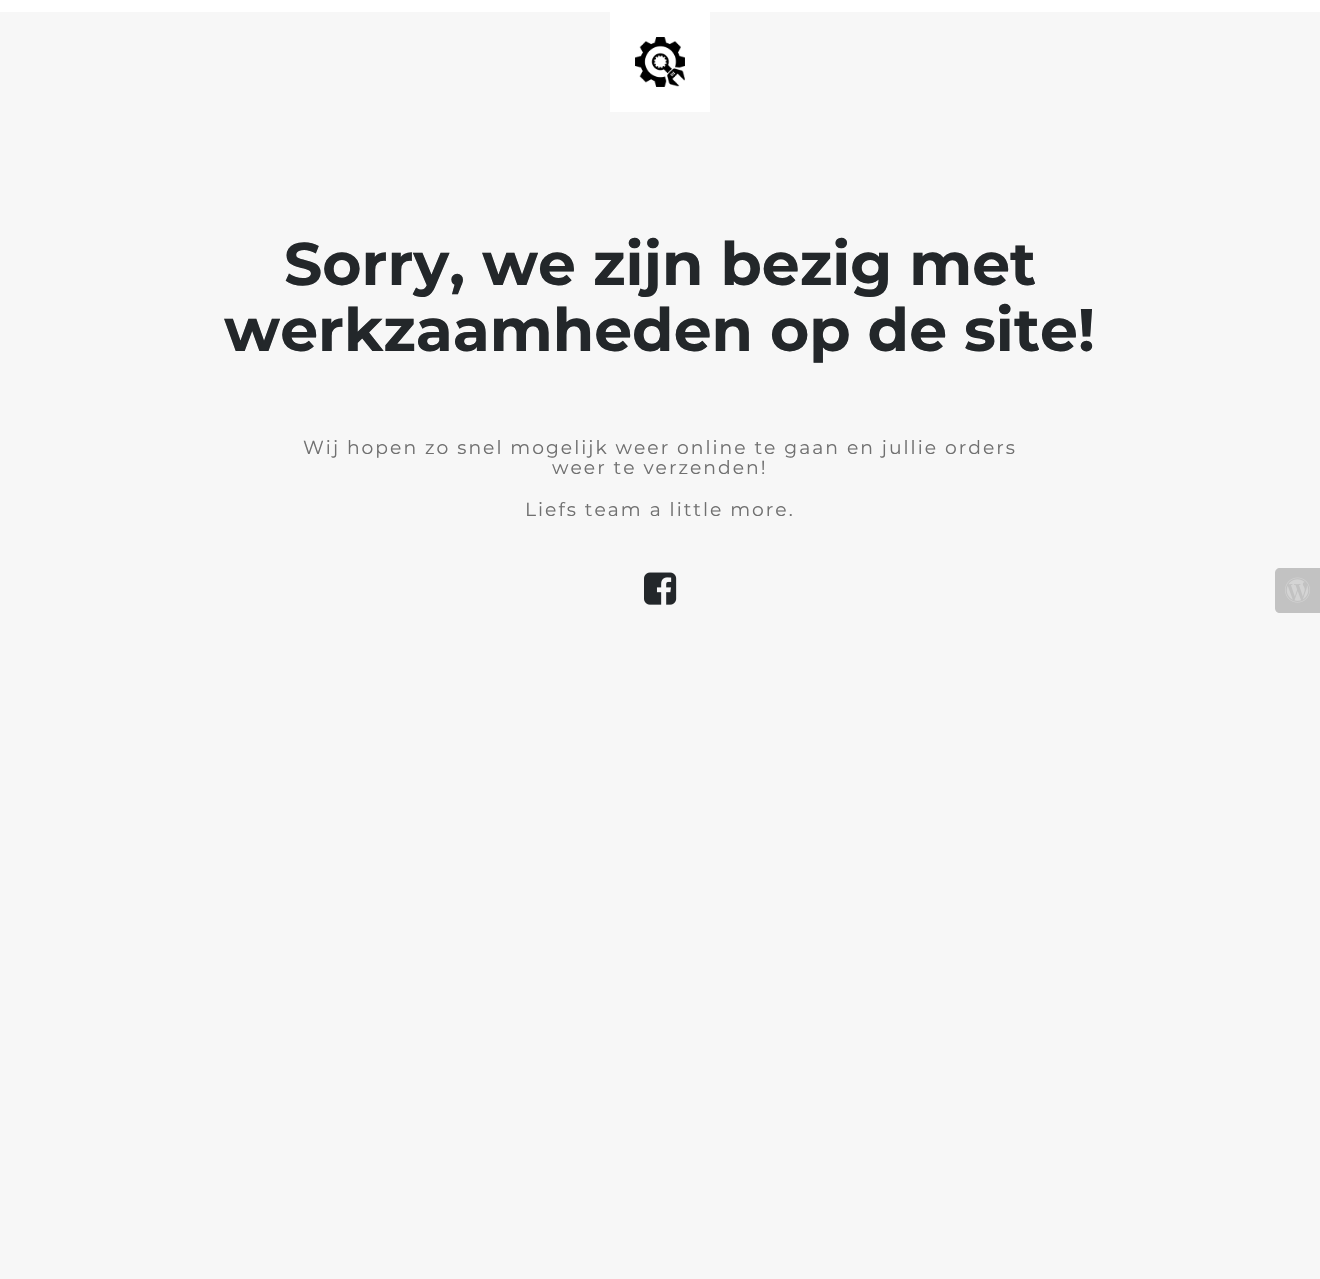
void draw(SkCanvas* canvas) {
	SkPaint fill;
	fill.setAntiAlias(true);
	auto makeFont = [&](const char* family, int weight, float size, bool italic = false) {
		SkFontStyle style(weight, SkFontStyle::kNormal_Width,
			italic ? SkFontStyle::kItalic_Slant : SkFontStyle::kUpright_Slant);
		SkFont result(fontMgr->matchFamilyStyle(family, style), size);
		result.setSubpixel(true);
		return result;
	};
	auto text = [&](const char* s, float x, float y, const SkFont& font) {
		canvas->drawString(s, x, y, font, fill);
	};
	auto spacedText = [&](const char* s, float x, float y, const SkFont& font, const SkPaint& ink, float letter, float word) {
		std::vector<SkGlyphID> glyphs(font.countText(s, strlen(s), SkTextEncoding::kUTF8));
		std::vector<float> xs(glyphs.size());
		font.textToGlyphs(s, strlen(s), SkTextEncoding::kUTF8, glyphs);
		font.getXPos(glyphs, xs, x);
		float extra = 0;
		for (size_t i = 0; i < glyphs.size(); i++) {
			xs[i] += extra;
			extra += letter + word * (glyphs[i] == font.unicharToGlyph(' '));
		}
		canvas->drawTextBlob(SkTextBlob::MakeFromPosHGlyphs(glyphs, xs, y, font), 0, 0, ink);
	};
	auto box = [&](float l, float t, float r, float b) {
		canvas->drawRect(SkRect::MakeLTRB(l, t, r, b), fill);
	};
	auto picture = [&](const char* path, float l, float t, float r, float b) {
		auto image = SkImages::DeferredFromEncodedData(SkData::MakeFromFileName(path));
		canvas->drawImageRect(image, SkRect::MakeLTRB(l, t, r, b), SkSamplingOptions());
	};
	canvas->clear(0xFFF7F7F7);
	fill.setColor(0xFFFFFFFF);
	box(0, 0, 1320, 12);
	box(610, 12, 710, 112);
	picture("image0.png", 635, 37, 685, 87);
	picture("image1.png", 644, 572, 677, 605);
	fill.setColor(0xFFC2C2C2);
	canvas->drawPath(SkPathBuilder().moveTo(1280, 568).lineTo(1320, 568).lineTo(1320, 613).lineTo(1280, 613).cubicTo(1277, 613, 1275, 611, 1275, 608).lineTo(1275, 573).cubicTo(1275, 570, 1277, 568, 1280, 568).close().detach(), fill);
	picture("image2.png", 1285, 577, 1310, 603);
	auto font1 = makeFont("Montserrat", 100, 60);
	fill.setColor(0xFF23272A);
	text("Sorry, we zijn bezig met", 284, 285, font1);
	text("werkzaamheden op de site!", 224, 351, font1);
	auto font2 = makeFont("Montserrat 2", 100, 18.75f);
	fill.setColor(0xFF707070);
	spacedText("Wij hopen zo snel mogelijk weer online te gaan en jullie orders", 303, 454, font2, fill, 2, 0);
	spacedText("weer te verzenden!", 552, 474, font2, fill, 2, 0);
	spacedText("Liefs team a little more.", 525, 516, font2, fill, 2, 0);
}
